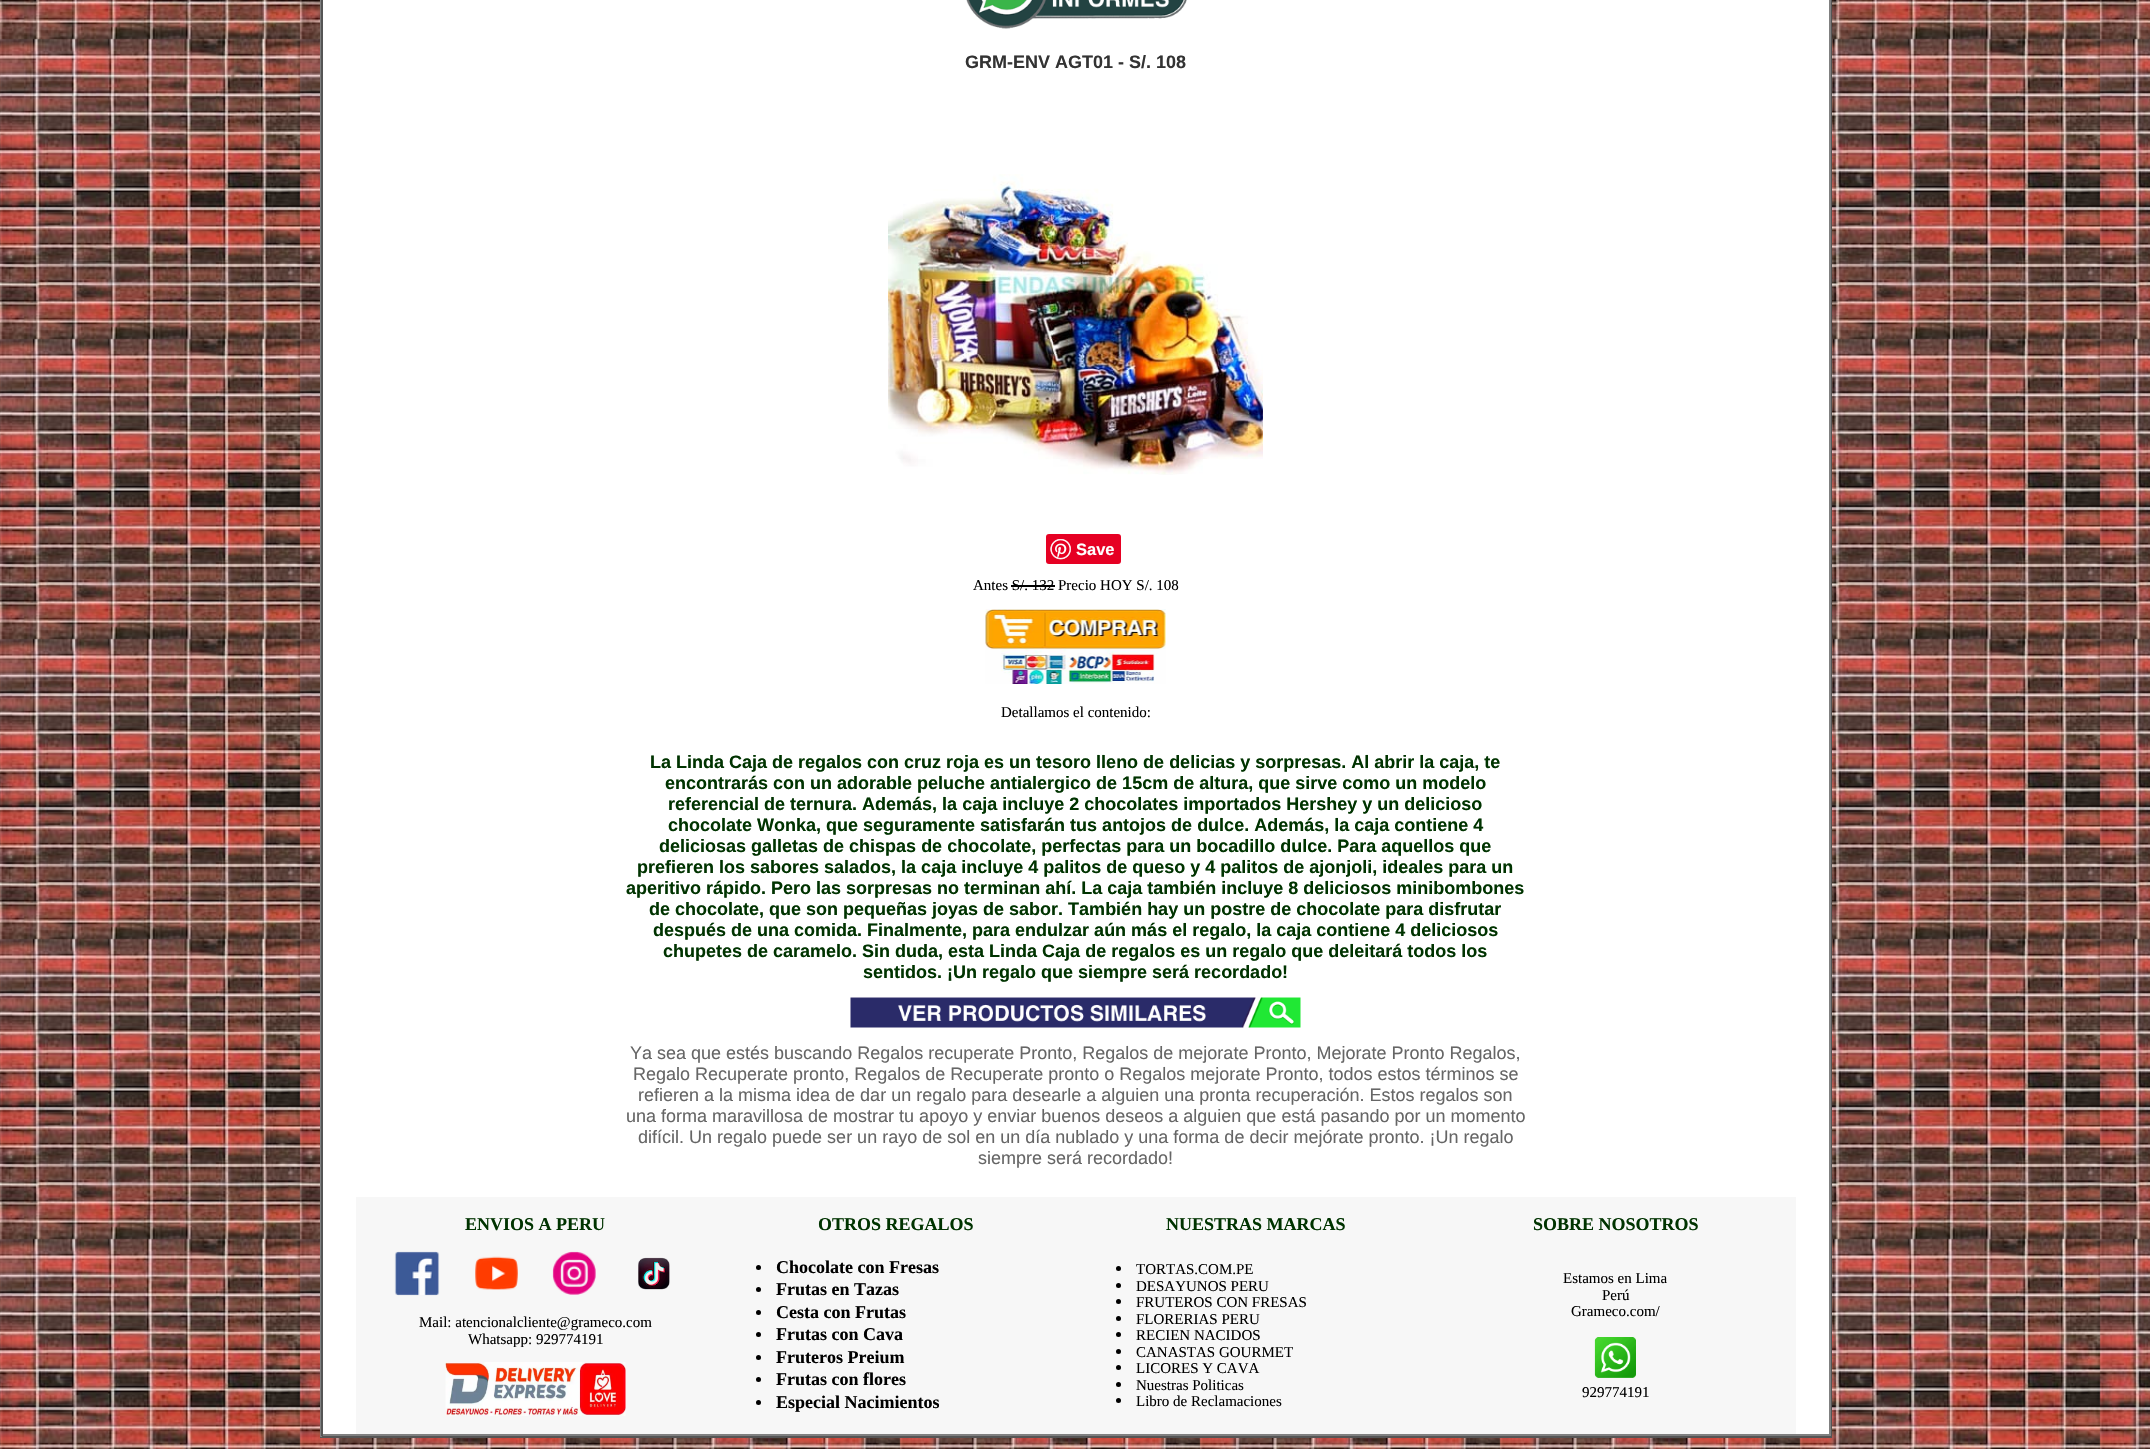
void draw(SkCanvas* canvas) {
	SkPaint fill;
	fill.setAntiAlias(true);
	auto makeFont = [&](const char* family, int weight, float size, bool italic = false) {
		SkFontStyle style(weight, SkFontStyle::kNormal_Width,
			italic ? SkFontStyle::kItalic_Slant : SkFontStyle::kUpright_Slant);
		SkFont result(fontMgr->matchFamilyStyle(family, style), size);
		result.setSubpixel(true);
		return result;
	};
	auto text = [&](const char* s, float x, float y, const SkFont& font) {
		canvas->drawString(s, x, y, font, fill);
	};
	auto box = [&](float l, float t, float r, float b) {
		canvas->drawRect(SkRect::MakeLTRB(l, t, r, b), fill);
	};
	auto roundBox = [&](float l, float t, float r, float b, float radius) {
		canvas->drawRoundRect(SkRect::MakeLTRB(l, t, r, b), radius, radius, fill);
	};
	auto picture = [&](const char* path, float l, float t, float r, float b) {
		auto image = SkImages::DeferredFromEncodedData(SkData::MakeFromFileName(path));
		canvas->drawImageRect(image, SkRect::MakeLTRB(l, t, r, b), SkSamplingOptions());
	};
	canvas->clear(0xFFFFFFFF);
	picture("image0.png", 0, 0, 2150, 1449);
	fill.setColor(0xFF555555);
	box(1831, 0, 1832, 1437);
	box(320, 1436, 1832, 1438);
	fill.setColor(0xFF808080);
	box(320, 0, 322, 1437);
	box(1829, 0, 1831, 1436);
	box(321, 1434, 1830, 1436);
	fill.setColor(0xFF555555);
	box(321, 0, 323, 1436);
	fill.setColor(0xFFFFFFFF);
	box(323, 0, 1829, 1434);
	picture("image1.png", 966, 0, 1187, 29);
	picture("image2.png", 888, 174, 1263, 475);
	fill.setColor(0xFFE60023);
	roundBox(1046, 534, 1121, 564, 3);
	picture("image3.png", 1050, 539, 1071, 560);
	fill.setColor(0xFF000000);
	box(1011, 585, 1055, 587);
	picture("image4.png", 985, 609, 1166, 684);
	picture("image5.png", 850, 997, 1301, 1028);
	fill.setColor(0xFFF7F7F7);
	box(356, 1197, 1796, 1434);
	picture("image6.png", 394, 1251, 440, 1296);
	picture("image7.png", 475, 1256, 518, 1290);
	picture("image8.png", 552, 1251, 596, 1295);
	picture("image9.png", 638, 1257, 670, 1290);
	fill.setColor(0xFF000000);
	canvas->drawCircle(758.5f, 1267.5f, 2.5f, fill);
	canvas->drawCircle(758.5f, 1289.5f, 2.5f, fill);
	canvas->drawCircle(758.5f, 1312.5f, 2.5f, fill);
	canvas->drawCircle(758.5f, 1334.5f, 2.5f, fill);
	canvas->drawCircle(758.5f, 1357.5f, 2.5f, fill);
	canvas->drawCircle(758.5f, 1379.5f, 2.5f, fill);
	canvas->drawCircle(758.5f, 1402.5f, 2.5f, fill);
	canvas->drawCircle(1118.5f, 1268.5f, 2.5f, fill);
	canvas->drawCircle(1118.5f, 1285.5f, 2.5f, fill);
	canvas->drawCircle(1118.5f, 1301.5f, 2.5f, fill);
	canvas->drawCircle(1118.5f, 1318.5f, 2.5f, fill);
	canvas->drawCircle(1118.5f, 1334.5f, 2.5f, fill);
	canvas->drawCircle(1118.5f, 1351.5f, 2.5f, fill);
	canvas->drawCircle(1118.5f, 1367.5f, 2.5f, fill);
	canvas->drawCircle(1118.5f, 1384.5f, 2.5f, fill);
	canvas->drawCircle(1118.5f, 1400.5f, 2.5f, fill);
	picture("image11.png", 1594, 1337, 1636, 1378);
	auto font1 = makeFont("Liberation Sans", 700, 18);
	fill.setColor(0xFF333333);
	text("GRM-ENV AGT01 - S/. 108", 965, 68, font1);
	auto font2 = makeFont("Liberation Sans", 700, 16.5f);
	fill.setColor(0xFFFFFFFF);
	text("Save", 1076, 555, font2);
	auto font3 = makeFont("Liberation Serif", 400, 15);
	fill.setColor(0xFF000000);
	text("Antes S/. 132 Precio HOY S/. 108", 973, 590, font3);
	text("Detallamos el contenido:", 1001, 717, font3);
	fill.setColor(0xFF003300);
	text("La Linda Caja de regalos con cruz roja es un tesoro lleno de delicias y sorpresas. Al abrir la caja, te", 650, 768, font1);
	text("encontrarás con un adorable peluche antialergico de 15cm de altura, que sirve como un modelo", 665, 789, font1);
	text("referencial de ternura. Además, la caja incluye 2 chocolates importados Hershey y un delicioso", 668, 810, font1);
	text("chocolate Wonka, que seguramente satisfarán tus antojos de dulce. Además, la caja contiene 4", 668, 831, font1);
	text("deliciosas galletas de chispas de chocolate, perfectas para un bocadillo dulce. Para aquellos que", 659, 852, font1);
	text("prefieren los sabores salados, la caja incluye 4 palitos de queso y 4 palitos de ajonjoli, ideales para un", 637, 873, font1);
	text("aperitivo rápido. Pero las sorpresas no terminan ahí. La caja también incluye 8 deliciosos minibombones", 626, 894, font1);
	text("de chocolate, que son pequeñas joyas de sabor. También hay un postre de chocolate para disfrutar", 649, 915, font1);
	text("después de una comida. Finalmente, para endulzar aún más el regalo, la caja contiene 4 deliciosos", 653, 936, font1);
	text("chupetes de caramelo. Sin duda, esta Linda Caja de regalos es un regalo que deleitará todos los", 663, 957, font1);
	text("sentidos. ¡Un regalo que siempre será recordado!", 863, 978, font1);
	auto font4 = makeFont("Liberation Sans", 400, 18);
	fill.setColor(0xFF666666);
	text("Ya sea que estés buscando Regalos recuperate Pronto, Regalos de mejorate Pronto, Mejorate Pronto Regalos,", 630, 1059, font4);
	text("Regalo Recuperate pronto, Regalos de Recuperate pronto o Regalos mejorate Pronto, todos estos términos se", 633, 1080, font4);
	text("refieren a la misma idea de dar un regalo para desearle a alguien una pronta recuperación. Estos regalos son", 638, 1101, font4);
	text("una forma maravillosa de mostrar tu apoyo y enviar buenos deseos a alguien que está pasando por un momento", 626, 1122, font4);
	text("difícil. Un regalo puede ser un rayo de sol en un día nublado y una forma de decir mejórate pronto. ¡Un regalo", 638, 1143, font4);
	text("siempre será recordado!", 978, 1164, font4);
	auto font5 = makeFont("Liberation Serif", 700, 18);
	fill.setColor(0xFF003300);
	text("ENVIOS A PERU", 465, 1230, font5);
	text("OTROS REGALOS", 818, 1230, font5);
	text("NUESTRAS MARCAS", 1166, 1230, font5);
	text("SOBRE NOSOTROS", 1533, 1230, font5);
	fill.setColor(0xFF000000);
	text("Mail: atencionalcliente@grameco.com", 419, 1327, font3);
	text("Whatsapp: 929774191", 468, 1344, font3);
	fill.setStyle(SkPaint::kStroke_Style);
	fill.setStrokeWidth(15);
	fill.setColor(0xFFF7F7F7);
	canvas->drawRect(SkRect::MakeLTRB(438.5f, 1354.5f, 633.5f, 1423.5f), fill);
	picture("image10.png", 445, 1362, 626, 1416);
	fill.setStyle(SkPaint::kFill_Style);
	fill.setColor(0xFF000000);
	text("Chocolate con Fresas", 776, 1273, font5);
	text("Frutas en Tazas", 776, 1295, font5);
	text("Cesta con Frutas", 776, 1318, font5);
	text("Frutas con Cava", 776, 1340, font5);
	text("Fruteros Preium", 776, 1363, font5);
	text("Frutas con flores", 776, 1385, font5);
	text("Especial Nacimientos", 776, 1408, font5);
	text("TORTAS.COM.PE", 1136, 1274, font3);
	text("DESAYUNOS PERU", 1136, 1291, font3);
	text("FRUTEROS CON FRESAS", 1136, 1307, font3);
	text("FLORERIAS PERU", 1136, 1324, font3);
	text("RECIEN NACIDOS", 1136, 1340, font3);
	text("CANASTAS GOURMET", 1136, 1357, font3);
	text("LICORES Y CAVA", 1136, 1373, font3);
	text("Nuestras Politicas", 1136, 1390, font3);
	text("Libro de Reclamaciones", 1136, 1406, font3);
	text("Estamos en Lima", 1563, 1283, font3);
	text("Perú", 1602, 1300, font3);
	text("Grameco.com/", 1571, 1316, font3);
	text("929774191", 1582, 1397, font3);
}
